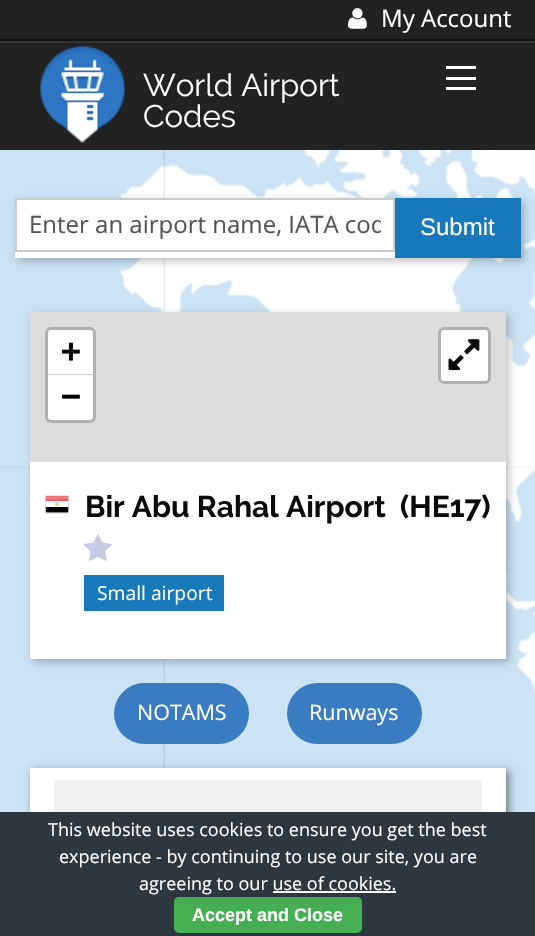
void draw(SkCanvas* canvas) {
	SkPaint fill;
	fill.setAntiAlias(true);
	auto makeFont = [&](const char* family, int weight, float size, bool italic = false) {
		SkFontStyle style(weight, SkFontStyle::kNormal_Width,
			italic ? SkFontStyle::kItalic_Slant : SkFontStyle::kUpright_Slant);
		SkFont result(fontMgr->matchFamilyStyle(family, style), size);
		result.setSubpixel(true);
		return result;
	};
	auto text = [&](const char* s, float x, float y, const SkFont& font) {
		canvas->drawString(s, x, y, font, fill);
	};
	auto box = [&](float l, float t, float r, float b) {
		canvas->drawRect(SkRect::MakeLTRB(l, t, r, b), fill);
	};
	auto roundBox = [&](float l, float t, float r, float b, float radius) {
		canvas->drawRoundRect(SkRect::MakeLTRB(l, t, r, b), radius, radius, fill);
	};
	auto picture = [&](const char* path, float l, float t, float r, float b) {
		auto image = SkImages::DeferredFromEncodedData(SkData::MakeFromFileName(path));
		canvas->drawImageRect(image, SkRect::MakeLTRB(l, t, r, b), SkSamplingOptions());
	};
	canvas->clear(0xFFFFFFFF);
	picture("image0.png", 0, 150, 535, 812);
	fill.setColor(0xFF222222);
	box(0, 0, 535, 39);
	fill.setColor(0xFF111111);
	box(0, 39, 535, 41);
	picture("image1.png", 348, 8, 367, 29);
	fill.setColor(0xFF222222);
	box(0, 43, 535, 150);
	fill.setColor(0xFF333333);
	box(0, 41, 535, 43);
	picture("image2.png", 40, 46, 125, 143);
	fill.setColor(0xFFFEFEFE);
	box(446, 87, 476, 90);
	box(446, 77, 476, 80);
	box(446, 66, 476, 69);
	fill.setColor(0x40000000);
	fill.setMaskFilter(SkMaskFilter::MakeBlur(kNormal_SkBlurStyle, 4));
	canvas->drawRect(SkRect::MakeLTRB(18, 201, 524, 261), fill);
	fill.setMaskFilter(nullptr);
	fill.setColor(0xFFFFFFFF);
	box(15, 200, 395, 258);
	fill.setStyle(SkPaint::kStroke_Style);
	fill.setStrokeWidth(2);
	fill.setColor(0xFFCACACA);
	canvas->drawRect(SkRect::MakeLTRB(16, 199, 394, 251), fill);
	fill.setStyle(SkPaint::kFill_Style);
	fill.setColor(0xFF1779BA);
	box(395, 198, 521, 258);
	fill.setColor(0x40000000);
	fill.setMaskFilter(SkMaskFilter::MakeBlur(kNormal_SkBlurStyle, 4));
	canvas->drawRect(SkRect::MakeLTRB(33, 315, 509, 662), fill);
	fill.setMaskFilter(nullptr);
	fill.setColor(0xFFFFFFFF);
	box(30, 462, 506, 659);
	fill.setColor(0xFFDDDDDD);
	box(30, 312, 506, 462);
	fill.setStyle(SkPaint::kStroke_Style);
	fill.setStrokeWidth(3);
	fill.setColor(0xFFB1B1B1);
	canvas->drawRoundRect(SkRect::MakeLTRB(46.5f, 328.5f, 94.5f, 421.5f), 4.5f, 4.5f, fill);
	fill.setStyle(SkPaint::kFill_Style);
	fill.setColor(0xFFFFFFFF);
	canvas->drawPath(SkPathBuilder().moveTo(51, 330).lineTo(90, 330).cubicTo(91.5f, 330, 93, 331.5f, 93, 333).lineTo(93, 375).lineTo(48, 375).lineTo(48, 333).cubicTo(48, 331.5f, 49.5f, 330, 51, 330).close().detach(), fill);
	fill.setColor(0xFFCCCCCC);
	box(48, 374, 93, 375);
	fill.setColor(0xFFFFFFFF);
	canvas->drawPath(SkPathBuilder().moveTo(48, 375).lineTo(93, 375).lineTo(93, 417).cubicTo(93, 418.5f, 91.5f, 420, 90, 420).lineTo(51, 420).cubicTo(49.5f, 420, 48, 418.5f, 48, 417).close().detach(), fill);
	canvas->drawRoundRect(SkRect::MakeLTRB(439.5f, 328.5f, 489.5f, 382.5f), 4.5f, 4.5f, fill);
	fill.setStyle(SkPaint::kStroke_Style);
	fill.setColor(0xFFB1B1B1);
	canvas->drawRoundRect(SkRect::MakeLTRB(439.5f, 328.5f, 489.5f, 382.5f), 4.5f, 4.5f, fill);
	picture("image3.png", 448, 339, 480, 371);
	picture("image4.png", 45, 495, 69, 514);
	picture("image5.png", 84, 534, 112, 561);
	fill.setStyle(SkPaint::kFill_Style);
	fill.setColor(0xFF1779BA);
	box(84, 575, 224, 611);
	fill.setColor(0xFF3A7CC2);
	roundBox(114, 683, 249, 744, 30.5f);
	roundBox(287, 683, 422, 744, 30.5f);
	fill.setColor(0x40000000);
	fill.setMaskFilter(SkMaskFilter::MakeBlur(kNormal_SkBlurStyle, 4));
	canvas->drawRect(SkRect::MakeLTRB(33, 771, 509, 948), fill);
	fill.setMaskFilter(nullptr);
	fill.setColor(0xFFFFFFFF);
	box(30, 768, 506, 812);
	canvas->save();
	canvas->clipPath(SkPathBuilder(SkPathFillType::kEvenOdd).moveTo(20, 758).lineTo(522, 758).lineTo(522, 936).lineTo(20, 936).close().moveTo(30, 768).lineTo(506, 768).lineTo(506, 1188).lineTo(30, 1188).close().detach(), true);
	fill.setColor(0x40000000);
	fill.setMaskFilter(SkMaskFilter::MakeBlur(kNormal_SkBlurStyle, 4));
	canvas->drawRect(SkRect::MakeLTRB(33, 771, 509, 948), fill);
	fill.setMaskFilter(nullptr);
	canvas->restore();
	fill.setColor(0xFFF1F1F1);
	box(54, 780, 482, 812);
	fill.setColor(0xFF2E363F);
	box(0, 812, 535, 936);
	fill.setColor(0xFF45AE52);
	roundBox(174, 897, 362, 933, 5);
	auto font1 = makeFont("Open Sans", 400, 24);
	fill.setColor(0xFFFEFEFE);
	text("My Account", 381, 27, font1);
	auto font2 = makeFont("Raleway", 400, 31.25f);
	text("World Airport", 143, 96, font2);
	text("Codes", 143, 127, font2);
	canvas->save();
	canvas->clipRect(SkRect::MakeLTRB(29, 209, 381, 242));
	fill.setColor(0xFF555555);
	text("Enter an airport name, IATA cod", 29, 233, font1);
	canvas->restore();
	auto font3 = makeFont("Liberation Sans", 400, 24);
	fill.setColor(0xFFFEFEFE);
	text("Submit", 420, 235, font3);
	auto font4 = makeFont("DejaVu Sans Mono", 700, 33);
	fill.setColor(0xFF000000);
	text("+", 61, 362, font4);
	text("−", 61, 407, font4);
	auto font5 = makeFont("Raleway", 700, 30);
	fill.setColor(0xFF0A0A0A);
	text("Bir Abu Rahal Airport", 85, 517, font5);
	text("(HE17)", 400, 517, font5);
	auto font6 = makeFont("Open Sans", 400, 19.25f);
	fill.setColor(0xFFFEFEFE);
	text("Small airport", 97, 600, font6);
	auto font7 = makeFont("Open Sans", 400, 21.5f);
	text("NOTAMS", 137, 720, font7);
	text("Runways", 309, 720, font7);
	auto font8 = makeFont("Open Sans", 400, 18);
	text("This website uses cookies to ensure you get the best", 48, 836, font8);
	text("experience - by continuing to use our site, you are", 59, 863, font8);
	text("agreeing to our use of cookies.", 139, 890, font8);
	fill.setColor(0xFFFFFFFF);
	box(273, 891, 396, 893);
	auto font9 = makeFont("Liberation Sans", 700, 18);
	fill.setColor(0xFFFEFEFE);
	text("Accept and Close", 192, 921, font9);
}
